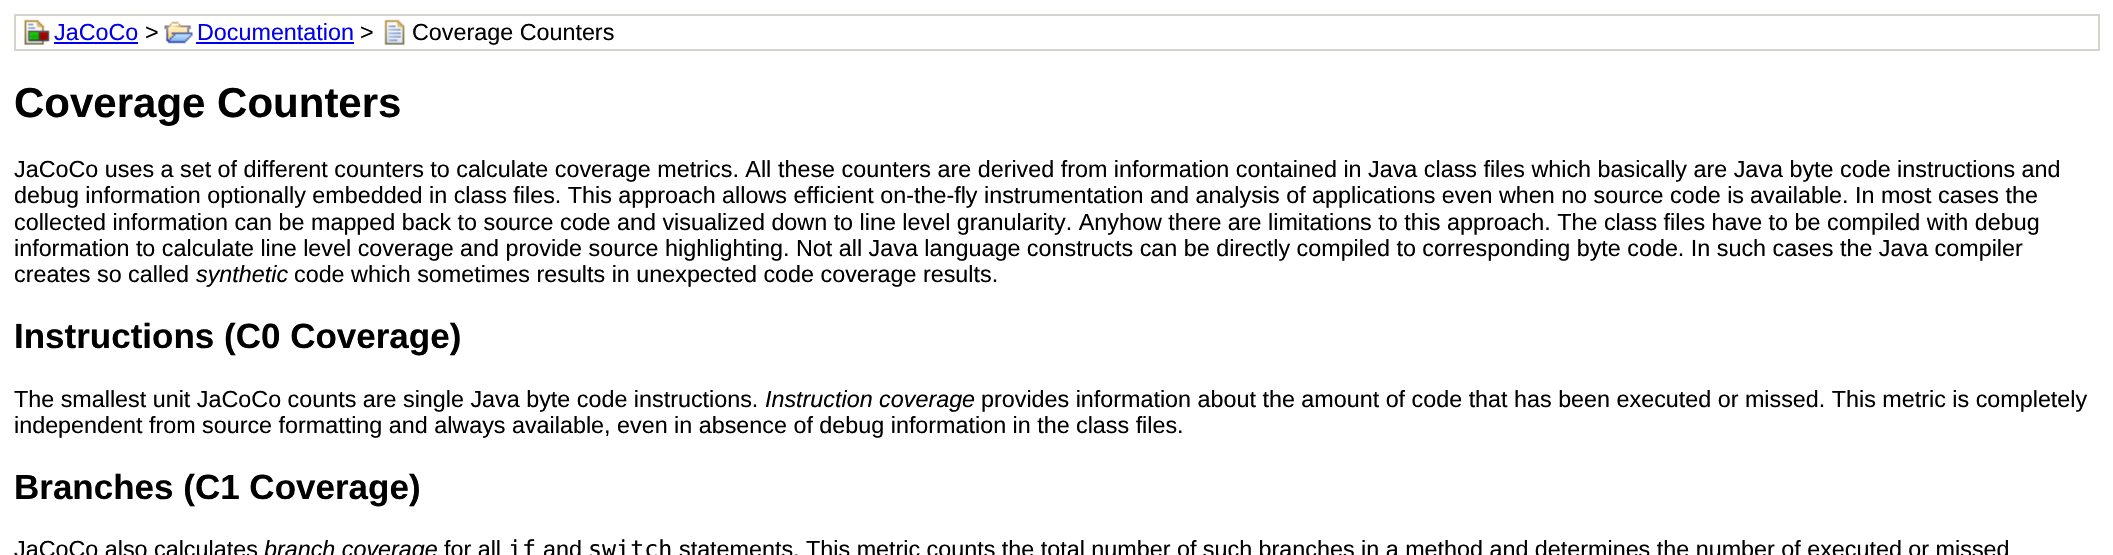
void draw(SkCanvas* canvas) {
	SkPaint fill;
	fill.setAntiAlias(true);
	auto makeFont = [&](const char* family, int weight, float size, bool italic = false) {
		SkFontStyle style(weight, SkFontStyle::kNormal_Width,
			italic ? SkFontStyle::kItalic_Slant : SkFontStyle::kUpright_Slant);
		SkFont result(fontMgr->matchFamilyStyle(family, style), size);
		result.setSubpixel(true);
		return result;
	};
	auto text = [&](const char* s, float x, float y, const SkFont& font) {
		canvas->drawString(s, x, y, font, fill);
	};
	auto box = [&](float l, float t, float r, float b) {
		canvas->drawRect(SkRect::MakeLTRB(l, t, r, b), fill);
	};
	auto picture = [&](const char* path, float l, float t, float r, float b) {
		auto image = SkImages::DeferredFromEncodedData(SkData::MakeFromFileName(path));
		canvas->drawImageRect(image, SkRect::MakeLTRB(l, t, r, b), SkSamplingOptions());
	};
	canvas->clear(0xFFFFFFFF);
	fill.setStyle(SkPaint::kStroke_Style);
	fill.setStrokeWidth(2);
	fill.setColor(0xFFD6D3CE);
	canvas->drawRect(SkRect::MakeLTRB(15, 15, 2099, 50), fill);
	picture("image0.png", 24, 19, 50, 45);
	fill.setStyle(SkPaint::kFill_Style);
	fill.setColor(0xFF0000EE);
	box(54, 42, 138, 44);
	picture("image1.png", 164, 21, 193, 44);
	box(196, 42, 354, 44);
	picture("image2.png", 384, 19, 405, 45);
	auto font1 = makeFont("Liberation Sans", 400, 23.33f);
	text("JaCoCo", 54, 40, font1);
	fill.setColor(0xFF000000);
	text(">", 145, 40, font1);
	fill.setColor(0xFF0000EE);
	text("Documentation", 197, 40, font1);
	fill.setColor(0xFF000000);
	text(">", 360, 40, font1);
	text("Coverage Counters", 412, 40, font1);
	auto font2 = makeFont("Liberation Sans", 700, 42);
	text("Coverage Counters", 14, 117, font2);
	text("JaCoCo uses a set of different counters to calculate coverage metrics. All", 14, 177, font1);
	text("these counters are derived from information contained in Java class files which basically are Java byte code instructions and", 778, 177, font1);
	text("debug information optionally embedded in class files. This approach allows efficient on-the-fly instrumentation and analysis of applications even when no source code is", 14, 203, font1);
	text("available. In most cases the", 1750, 203, font1);
	text("collected information can be mapped back to source code and visualized down to line level granularity. Anyhow there are limitations to this approach. The class files have to be compiled with debug", 14, 230, font1);
	text("information to calculate line level coverage and provide source highlighting.", 14, 256, font1);
	text("Not all Java language constructs can be directly compiled to corresponding byte code. In such cases the Java compiler", 796, 256, font1);
	text("creates so called", 14, 282, font1);
	auto font3 = makeFont("Liberation Sans", 400, 23.33f, true);
	text("synthetic", 196, 282, font3);
	text("code which sometimes results in unexpected code coverage results.", 294, 282, font1);
	auto font4 = makeFont("Liberation Sans", 700, 35);
	text("Instructions (C0 Coverage)", 14, 348, font4);
	text("The smallest unit JaCoCo counts are single Java byte code instructions.", 14, 407, font1);
	text("Instruction coverage", 765, 407, font3);
	text("provides information about the amount of code that has been executed or missed. This metric is completely", 981, 407, font1);
	text("independent from source formatting and always available, even in absence of debug information in the", 14, 433, font1);
	text("class files.", 1076, 433, font1);
	text("Branches (C1 Coverage)", 14, 499, font4);
	text("JaCoCo also calculates", 14, 557, font1);
	text("branch coverage", 264, 557, font3);
	text("for all", 444, 557, font1);
	auto font5 = makeFont("DejaVu Sans Mono", 400, 23.33f);
	text("if", 508, 557, font5);
	text("and", 543, 557, font1);
	text("switch", 588, 557, font5);
	text("statements. This metric counts the total number of such branches in a method and determines the number of executed or missed", 679, 557, font1);
}
